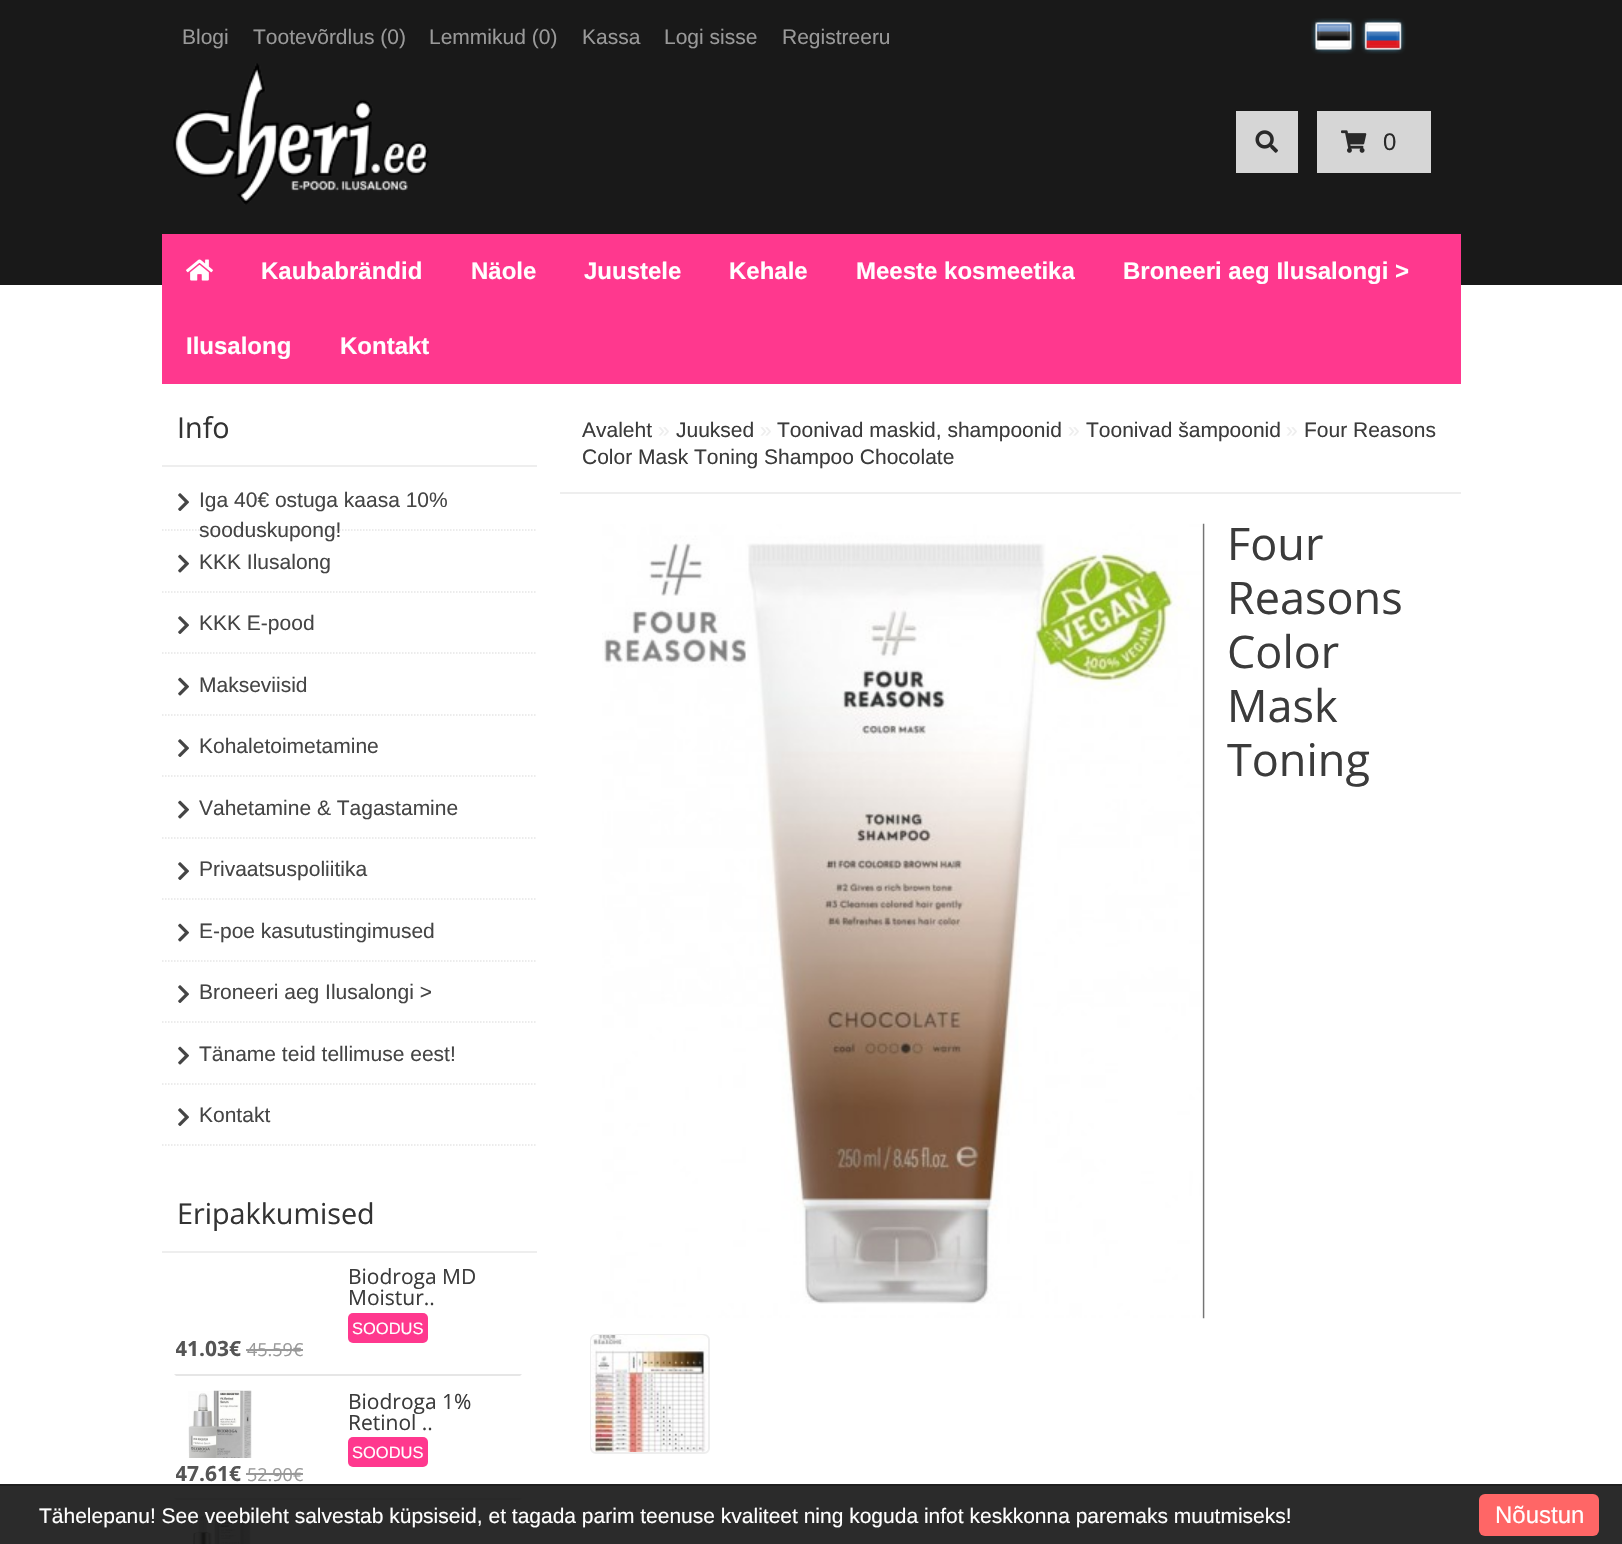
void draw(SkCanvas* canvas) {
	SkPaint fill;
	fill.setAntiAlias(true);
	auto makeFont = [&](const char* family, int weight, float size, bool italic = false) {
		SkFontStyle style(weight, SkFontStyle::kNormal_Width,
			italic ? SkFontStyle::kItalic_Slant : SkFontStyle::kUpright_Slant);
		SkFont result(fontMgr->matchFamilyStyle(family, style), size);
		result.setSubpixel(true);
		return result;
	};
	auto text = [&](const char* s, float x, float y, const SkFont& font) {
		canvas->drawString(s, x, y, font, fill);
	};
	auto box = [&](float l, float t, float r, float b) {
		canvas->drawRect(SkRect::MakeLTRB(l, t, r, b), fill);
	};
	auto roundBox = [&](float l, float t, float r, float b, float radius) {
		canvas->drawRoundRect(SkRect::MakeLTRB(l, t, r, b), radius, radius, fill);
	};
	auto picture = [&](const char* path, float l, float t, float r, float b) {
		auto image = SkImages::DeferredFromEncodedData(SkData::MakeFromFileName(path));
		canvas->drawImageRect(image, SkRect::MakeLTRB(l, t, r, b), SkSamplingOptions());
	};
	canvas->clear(0xFFFFFFFF);
	fill.setColor(0xFF191919);
	box(0, 0, 1622, 285);
	picture("image0.png", 1311, 18, 1356, 54);
	picture("image1.png", 1360, 18, 1406, 54);
	picture("image2.png", 173, 63, 429, 205);
	fill.setColor(0xFFD6D6D6);
	box(1236, 111, 1298, 173);
	picture("image3.png", 1255, 130, 1278, 153);
	box(1317, 111, 1431, 173);
	picture("image4.png", 1341, 130, 1367, 153);
	fill.setColor(0xFFFF388E);
	box(162, 234, 1461, 384);
	picture("image5.png", 186, 259, 213, 281);
	fill.setColor(0xFFEEEEEE);
	box(162, 465, 537, 467);
	fill.setStyle(SkPaint::kStroke_Style);
	fill.setStrokeWidth(1.5f);
	fill.setColor(0xFFE6E6E6);
	fill.setPathEffect(SkDashPathEffect::Make({{1.5f, 1.5f}}, 0));
	canvas->drawPath(SkPathBuilder().moveTo(162, 530).lineTo(537, 530).detach(), fill);
	fill.setPathEffect(nullptr);
	picture("image6.png", 178, 493, 189, 511);
	fill.setPathEffect(SkDashPathEffect::Make({{1.5f, 1.5f}}, 0));
	canvas->drawPath(SkPathBuilder().moveTo(162, 592).lineTo(537, 592).detach(), fill);
	fill.setPathEffect(nullptr);
	picture("image7.png", 178, 554, 189, 573);
	fill.setPathEffect(SkDashPathEffect::Make({{1.5f, 1.5f}}, 0));
	canvas->drawPath(SkPathBuilder().moveTo(162, 653).lineTo(537, 653).detach(), fill);
	fill.setPathEffect(nullptr);
	picture("image6.png", 178, 616, 189, 634);
	fill.setPathEffect(SkDashPathEffect::Make({{1.5f, 1.5f}}, 0));
	canvas->drawPath(SkPathBuilder().moveTo(162, 715).lineTo(537, 715).detach(), fill);
	fill.setPathEffect(nullptr);
	picture("image7.png", 178, 677, 189, 696);
	fill.setPathEffect(SkDashPathEffect::Make({{1.5f, 1.5f}}, 0));
	canvas->drawPath(SkPathBuilder().moveTo(162, 776).lineTo(537, 776).detach(), fill);
	fill.setPathEffect(nullptr);
	picture("image6.png", 178, 739, 189, 757);
	fill.setPathEffect(SkDashPathEffect::Make({{1.5f, 1.5f}}, 0));
	canvas->drawPath(SkPathBuilder().moveTo(162, 838).lineTo(537, 838).detach(), fill);
	fill.setPathEffect(nullptr);
	picture("image7.png", 178, 800, 189, 819);
	fill.setPathEffect(SkDashPathEffect::Make({{1.5f, 1.5f}}, 0));
	canvas->drawPath(SkPathBuilder().moveTo(162, 899).lineTo(537, 899).detach(), fill);
	fill.setPathEffect(nullptr);
	picture("image6.png", 178, 862, 189, 880);
	fill.setPathEffect(SkDashPathEffect::Make({{1.5f, 1.5f}}, 0));
	canvas->drawPath(SkPathBuilder().moveTo(162, 961).lineTo(537, 961).detach(), fill);
	fill.setPathEffect(nullptr);
	picture("image7.png", 178, 923, 189, 942);
	fill.setPathEffect(SkDashPathEffect::Make({{1.5f, 1.5f}}, 0));
	canvas->drawPath(SkPathBuilder().moveTo(162, 1022).lineTo(537, 1022).detach(), fill);
	fill.setPathEffect(nullptr);
	picture("image6.png", 178, 985, 189, 1003);
	fill.setPathEffect(SkDashPathEffect::Make({{1.5f, 1.5f}}, 0));
	canvas->drawPath(SkPathBuilder().moveTo(162, 1084).lineTo(537, 1084).detach(), fill);
	fill.setPathEffect(nullptr);
	picture("image7.png", 178, 1046, 189, 1065);
	fill.setPathEffect(SkDashPathEffect::Make({{1.5f, 1.5f}}, 0));
	canvas->drawPath(SkPathBuilder().moveTo(162, 1145).lineTo(537, 1145).detach(), fill);
	fill.setPathEffect(nullptr);
	picture("image6.png", 178, 1108, 189, 1126);
	fill.setStyle(SkPaint::kFill_Style);
	fill.setColor(0xFFEEEEEE);
	box(162, 1251, 537, 1253);
	fill.setColor(0xFFFF388E);
	roundBox(348, 1313, 428, 1343, 5);
	fill.setColor(0xFF999999);
	box(246, 1349, 303, 1351);
	fill.setColor(0xFFE6E6E6);
	canvas->drawPath(SkPathBuilder().moveTo(174, 1374).lineTo(522, 1374).lineTo(520, 1376).lineTo(176, 1376).close().detach(), fill);
	picture("image8.png", 188, 1390, 252, 1458);
	fill.setColor(0xFFFF388E);
	roundBox(348, 1437, 428, 1467, 5);
	fill.setColor(0xFF999999);
	box(246, 1473, 303, 1475);
	fill.setColor(0xFFE6E6E6);
	canvas->drawPath(SkPathBuilder().moveTo(174, 1498).lineTo(522, 1498).lineTo(520, 1500).lineTo(176, 1500).close().detach(), fill);
	picture("image9.png", 192, 1515, 251, 1544);
	fill.setColor(0xFFEEEEEE);
	box(560, 492, 1461, 494);
	picture("image10.png", 602, 523, 1205, 1319);
	fill.setStyle(SkPaint::kStroke_Style);
	fill.setStrokeWidth(2);
	canvas->drawRoundRect(SkRect::MakeLTRB(591, 1335, 709, 1453), 5, 5, fill);
	picture("image11.png", 591, 1335, 708, 1452);
	fill.setStyle(SkPaint::kFill_Style);
	fill.setColor(0xE6141414);
	box(0, 1484, 1622, 1544);
	fill.setColor(0xE61E1E1E);
	box(0, 1484, 1622, 1486);
	fill.setColor(0xFFFF6666);
	roundBox(1479, 1494, 1599, 1536, 6);
	auto font1 = makeFont("Liberation Sans", 400, 21);
	fill.setColor(0xFF999999);
	text("Blogi", 182, 44, font1);
	text("Tootevõrdlus (0)", 253, 44, font1);
	text("Lemmikud (0)", 429, 44, font1);
	text("Kassa", 582, 44, font1);
	text("Logi sisse", 664, 44, font1);
	text("Registreeru", 782, 44, font1);
	auto font2 = makeFont("Liberation Sans", 400, 24);
	fill.setColor(0xFF292929);
	text("0", 1383, 150, font2);
	auto font3 = makeFont("Liberation Sans", 700, 24);
	fill.setColor(0xFFFFFFFF);
	text("Kaubabrändid", 261, 279, font3);
	text("Näole", 471, 279, font3);
	text("Juustele", 584, 279, font3);
	text("Kehale", 729, 279, font3);
	text("Meeste kosmeetika", 856, 279, font3);
	text("Broneeri aeg Ilusalongi >", 1123, 279, font3);
	text("Ilusalong", 186, 354, font3);
	text("Kontakt", 340, 354, font3);
	auto font4 = makeFont("Open Sans", 400, 28.75f);
	fill.setColor(0xFF333333);
	text("Info", 177, 438, font4);
	fill.setColor(0xFF454545);
	text("Iga 40€ ostuga kaasa 10%", 199, 507, font1);
	text("sooduskupong!", 199, 537, font1);
	text("KKK Ilusalong", 199, 569, font1);
	text("KKK E-pood", 199, 630, font1);
	text("Makseviisid", 199, 692, font1);
	text("Kohaletoimetamine", 199, 753, font1);
	text("Vahetamine & Tagastamine", 199, 815, font1);
	text("Privaatsuspoliitika", 199, 876, font1);
	text("E-poe kasutustingimused", 199, 938, font1);
	text("Broneeri aeg Ilusalongi >", 199, 999, font1);
	text("Täname teid tellimuse eest!", 199, 1061, font1);
	text("Kontakt", 199, 1122, font1);
	fill.setColor(0xFF333333);
	text("Eripakkumised", 177, 1224, font4);
	auto font5 = makeFont("Open Sans", 400, 21);
	fill.setColor(0xFF3B3B3B);
	text("Biodroga MD", 348, 1284, font5);
	text("Moistur..", 348, 1305, font5);
	auto font6 = makeFont("Liberation Sans", 400, 16.5f);
	fill.setColor(0xFFFFFFFF);
	text("SOODUS", 352, 1334, font6);
	canvas->save();
	canvas->clipRect(SkRect::MakeLTRB(176, 1266, 521, 1388));
	auto font7 = makeFont("Open Sans", 700, 21);
	fill.setColor(0xFF555555);
	text("41.03€", 175, 1356, font7);
	canvas->restore();
	auto font8 = makeFont("Open Sans", 400, 18);
	fill.setColor(0xFF999999);
	text("45.59€", 247, 1356, font8);
	fill.setColor(0xFF3B3B3B);
	text("Biodroga 1%", 348, 1409, font5);
	text("Retinol ..", 348, 1430, font5);
	fill.setColor(0xFFFFFFFF);
	text("SOODUS", 352, 1458, font6);
	canvas->save();
	canvas->clipRect(SkRect::MakeLTRB(176, 1376, 521, 1512));
	fill.setColor(0xFF555555);
	text("47.61€", 175, 1481, font7);
	canvas->restore();
	fill.setColor(0xFF999999);
	text("52.90€", 247, 1481, font8);
	fill.setColor(0xFF3B3B3B);
	text("Avaleht", 582, 437, font1);
	fill.setColor(0xFFEEEEEE);
	text("»", 658, 437, font1);
	fill.setColor(0xFF3B3B3B);
	text("Juuksed", 676, 437, font1);
	fill.setColor(0xFFEEEEEE);
	text("»", 760, 437, font1);
	fill.setColor(0xFF3B3B3B);
	text("Toonivad maskid, shampoonid", 777, 437, font1);
	fill.setColor(0xFFEEEEEE);
	text("»", 1068, 437, font1);
	fill.setColor(0xFF3B3B3B);
	text("Toonivad šampoonid", 1086, 437, font1);
	fill.setColor(0xFFEEEEEE);
	text("»", 1286, 437, font1);
	fill.setColor(0xFF3B3B3B);
	text("Four Reasons", 1304, 437, font1);
	text("Color Mask Toning Shampoo Chocolate", 582, 464, font1);
	auto font9 = makeFont("Open Sans", 400, 45);
	text("Four", 1227, 560, font9);
	text("Reasons", 1227, 614, font9);
	text("Color", 1227, 668, font9);
	text("Mask", 1227, 722, font9);
	text("Toning", 1227, 776, font9);
	fill.setColor(0xFFFFFFFF);
	text("Tähelepanu! See veebileht salvestab küpsiseid, et tagada parim teenuse kvaliteet ning koguda infot keskkonna paremaks muutmiseks!", 39, 1523, font1);
	text("Nõustun", 1495, 1523, font2);
}
